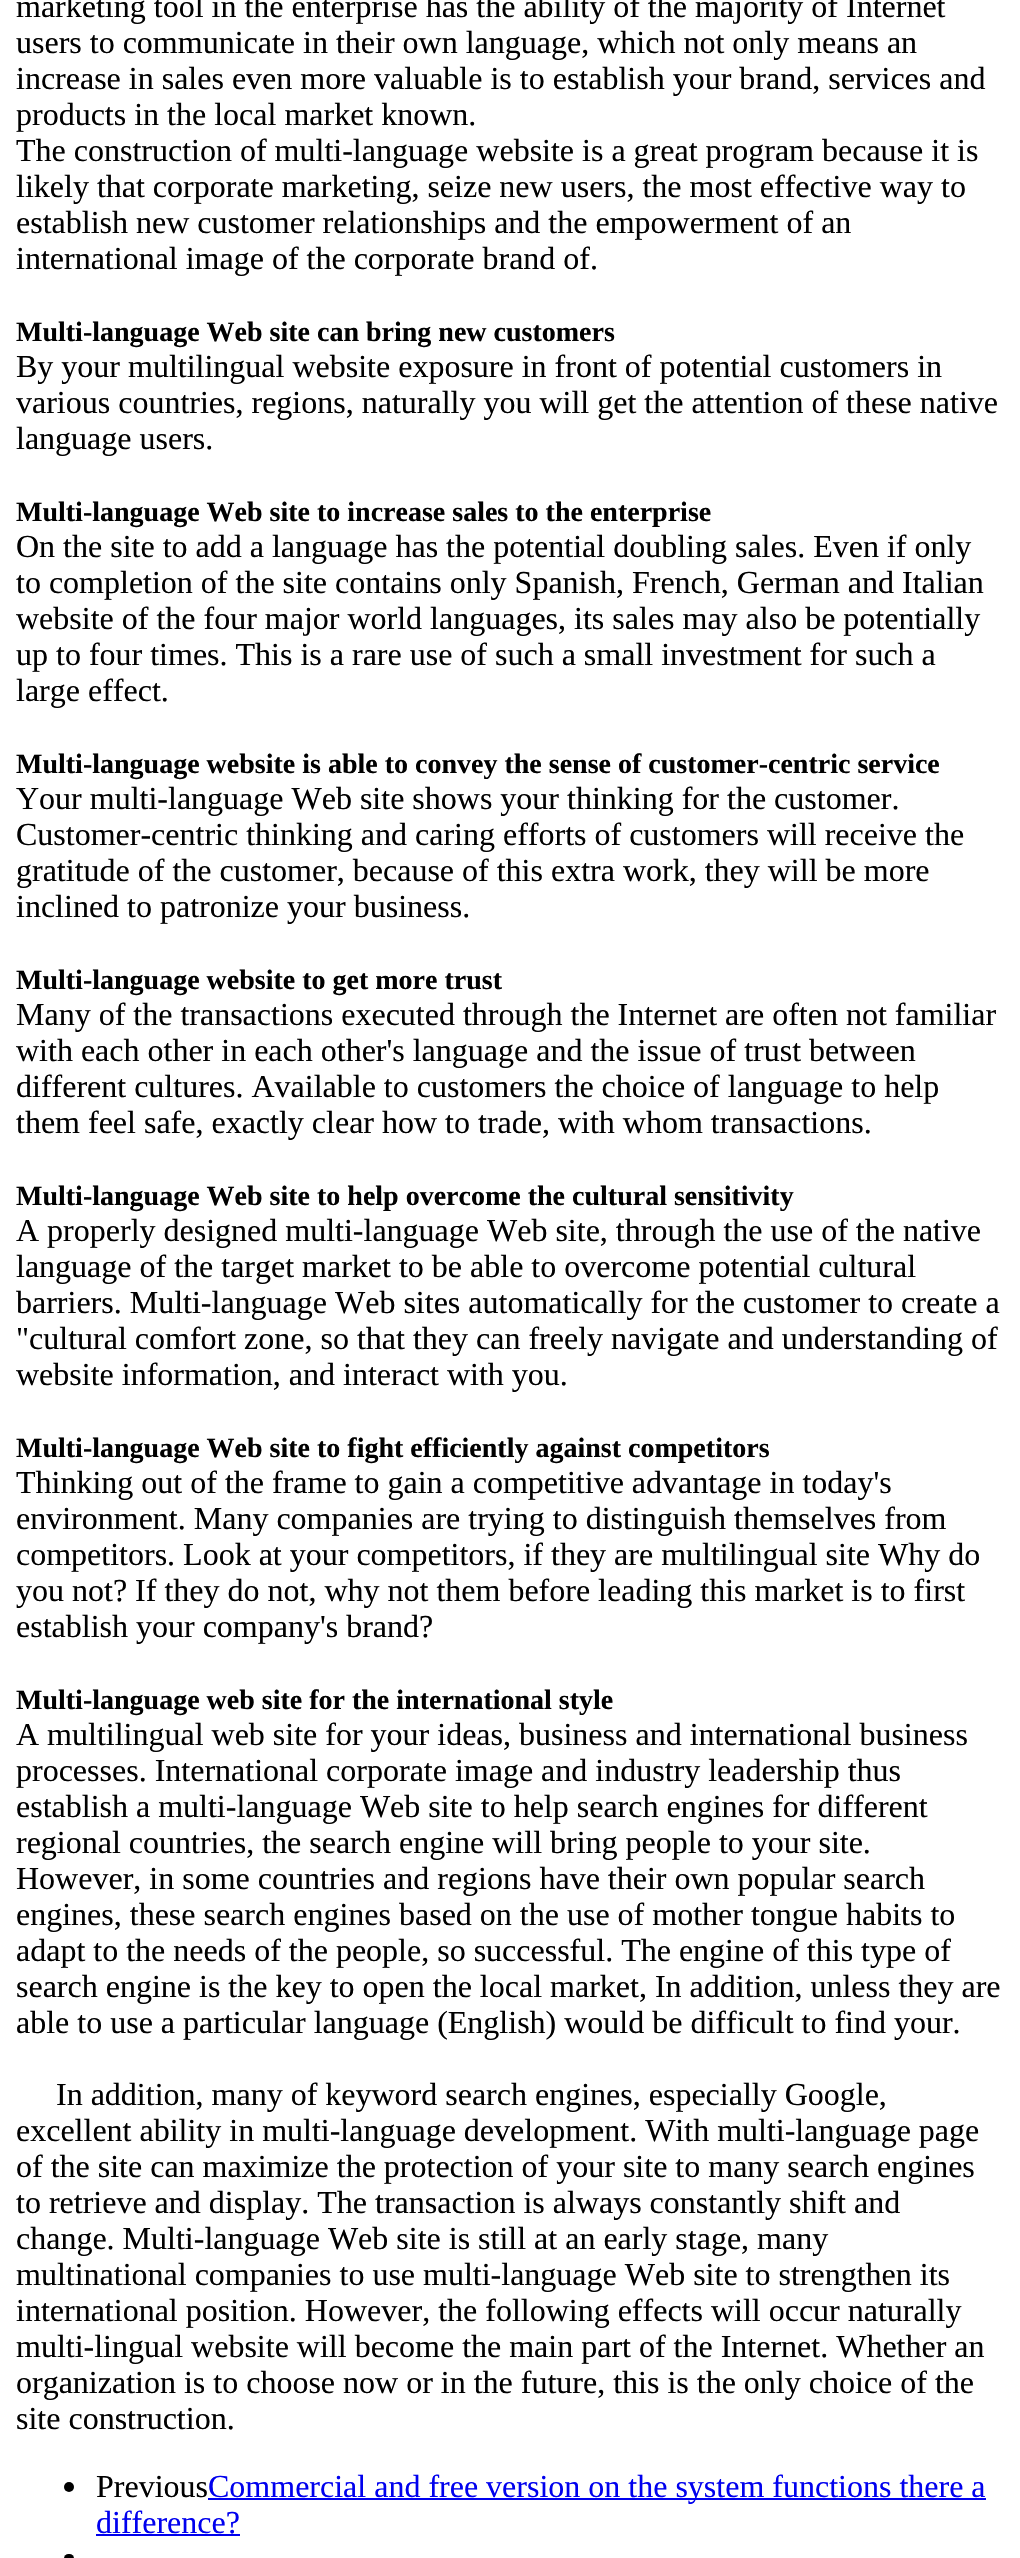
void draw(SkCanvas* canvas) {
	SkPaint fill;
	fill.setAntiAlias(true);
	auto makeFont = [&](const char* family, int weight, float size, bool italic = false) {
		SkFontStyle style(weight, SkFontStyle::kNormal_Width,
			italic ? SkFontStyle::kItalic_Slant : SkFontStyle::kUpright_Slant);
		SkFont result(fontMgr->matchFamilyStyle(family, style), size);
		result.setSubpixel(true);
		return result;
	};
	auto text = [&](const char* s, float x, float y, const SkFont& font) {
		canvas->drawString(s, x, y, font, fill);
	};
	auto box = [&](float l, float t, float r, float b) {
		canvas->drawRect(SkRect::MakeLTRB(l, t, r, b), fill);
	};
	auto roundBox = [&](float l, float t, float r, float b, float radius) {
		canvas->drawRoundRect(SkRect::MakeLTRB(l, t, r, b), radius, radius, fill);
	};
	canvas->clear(0xFFFFFFFF);
	fill.setColor(0xFF000000);
	canvas->drawCircle(69, 2487, 5, fill);
	fill.setColor(0xFF0000EE);
	box(208, 2498, 986, 2500);
	box(96, 2534, 240, 2536);
	fill.setColor(0xFF000000);
	roundBox(64, 2554, 74, 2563, 5);
	auto font1 = makeFont("Liberation Serif", 400, 32);
	text("marketing tool in the enterprise has the ability of the majority of Internet", 16, 17, font1);
	text("users to communicate in their own language, which not only means an", 16, 53, font1);
	text("increase in sales even more valuable is to establish your brand, services and", 16, 89, font1);
	text("products in the local market known.", 16, 125, font1);
	text("The construction of multi-language website is a great program because it is", 16, 161, font1);
	text("likely that corporate marketing, seize new users, the most effective way to", 16, 197, font1);
	text("establish new customer relationships and the empowerment of an", 16, 233, font1);
	text("international image of the corporate brand of.", 16, 269, font1);
	auto font2 = makeFont("Liberation Serif", 700, 28);
	text("Multi-language Web site can bring new customers", 16, 341, font2);
	text("By your multilingual website exposure in front of potential customers in", 16, 377, font1);
	text("various countries, regions, naturally you will get the attention of these native", 16, 413, font1);
	text("language users.", 16, 449, font1);
	text("Multi-language Web site to increase sales to the enterprise", 16, 521, font2);
	text("On the site to add a language has the potential doubling sales. Even if only", 16, 557, font1);
	text("to completion of the site contains only Spanish, French, German and Italian", 16, 593, font1);
	text("website of the four major world languages, its sales may also be potentially", 16, 629, font1);
	text("up to four times. This is a rare use of such a small investment for such a", 16, 665, font1);
	text("large effect.", 16, 701, font1);
	text("Multi-language website is able to convey the sense of customer-centric service", 16, 773, font2);
	text("Your multi-language Web site shows your thinking for the customer.", 16, 809, font1);
	text("Customer-centric thinking and caring efforts of customers will receive the", 16, 845, font1);
	text("gratitude of the customer, because of this extra work, they will be more", 16, 881, font1);
	text("inclined to patronize your business.", 16, 917, font1);
	text("Multi-language website to get more trust", 16, 989, font2);
	text("Many of the transactions executed through the Internet are often not familiar", 16, 1025, font1);
	text("with each other in each other's language and the issue of trust between", 16, 1061, font1);
	text("different cultures. Available to customers the choice of language to help", 16, 1097, font1);
	text("them feel safe, exactly clear how to trade, with whom transactions.", 16, 1133, font1);
	text("Multi-language Web site to help overcome the cultural sensitivity", 16, 1205, font2);
	text("A properly designed multi-language Web site, through the use of the native", 16, 1241, font1);
	text("language of the target market to be able to overcome potential cultural", 16, 1277, font1);
	text("barriers. Multi-language Web sites automatically for the customer to create a", 16, 1313, font1);
	text("\"cultural comfort zone, so that they can freely navigate and understanding of", 16, 1349, font1);
	text("website information, and interact with you.", 16, 1385, font1);
	text("Multi-language Web site to fight efficiently against competitors", 16, 1457, font2);
	text("Thinking out of the frame to gain a competitive advantage in today's", 16, 1493, font1);
	text("environment. Many companies are trying to distinguish themselves from", 16, 1529, font1);
	text("competitors. Look at your competitors, if they are multilingual site Why do", 16, 1565, font1);
	text("you not? If they do not, why not them before leading this market is to first", 16, 1601, font1);
	text("establish your company's brand?", 16, 1637, font1);
	text("Multi-language web site for the international style", 16, 1709, font2);
	text("A multilingual web site for your ideas, business and international business", 16, 1745, font1);
	text("processes. International corporate image and industry leadership thus", 16, 1781, font1);
	text("establish a multi-language Web site to help search engines for different", 16, 1817, font1);
	text("regional countries, the search engine will bring people to your site.", 16, 1853, font1);
	text("However, in some countries and regions have their own popular search", 16, 1889, font1);
	text("engines, these search engines based on the use of mother tongue habits to", 16, 1925, font1);
	text("adapt to the needs of the people, so successful. The engine of this type of", 16, 1961, font1);
	text("search engine is the key to open the local market, In addition, unless they are", 16, 1997, font1);
	text("able to use a particular language (English) would be difficult to find your.", 16, 2033, font1);
	text("In addition, many of keyword search engines, especially Google,", 56, 2105, font1);
	text("excellent ability in multi-language development. With multi-language page", 16, 2141, font1);
	text("of the site can maximize the protection of your site to many search engines", 16, 2177, font1);
	text("to retrieve and display. The transaction is always constantly shift and", 16, 2213, font1);
	text("change. Multi-language Web site is still at an early stage, many", 16, 2249, font1);
	text("multinational companies to use multi-language Web site to strengthen its", 16, 2285, font1);
	text("international position. However, the following effects will occur naturally", 16, 2321, font1);
	text("multi-lingual website will become the main part of the Internet. Whether an", 16, 2357, font1);
	text("organization is to choose now or in the future, this is the only choice of the", 16, 2393, font1);
	text("site construction.", 16, 2429, font1);
	text("Previous", 96, 2497, font1);
	fill.setColor(0xFF0000EE);
	text("Commercial and free version on the system functions there a", 208, 2497, font1);
	text("difference?", 96, 2533, font1);
}
